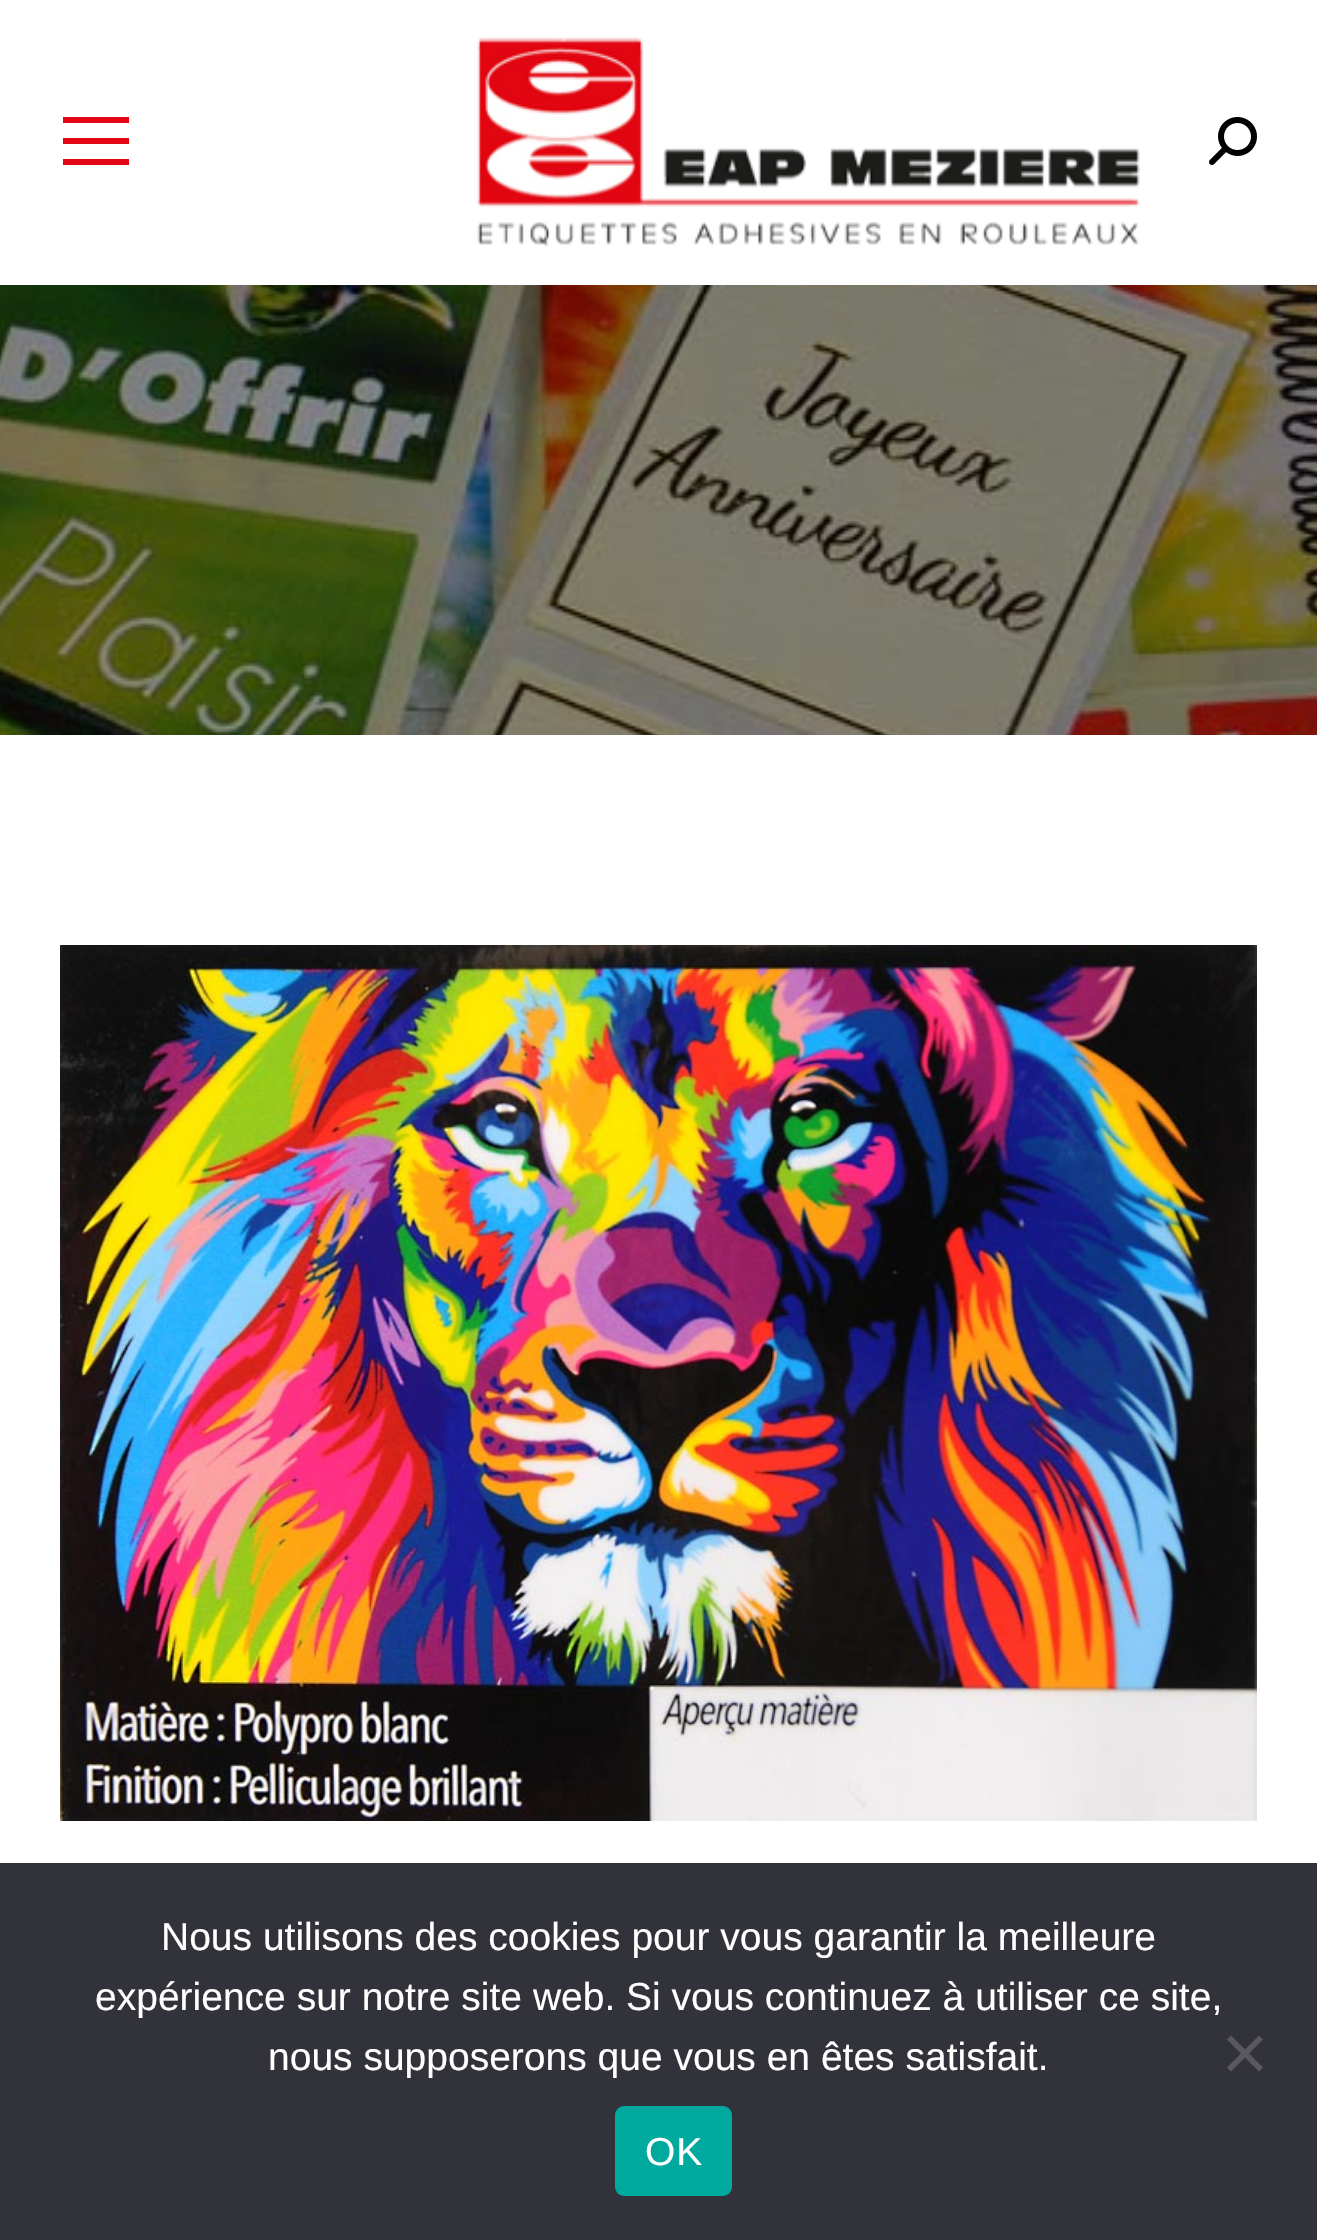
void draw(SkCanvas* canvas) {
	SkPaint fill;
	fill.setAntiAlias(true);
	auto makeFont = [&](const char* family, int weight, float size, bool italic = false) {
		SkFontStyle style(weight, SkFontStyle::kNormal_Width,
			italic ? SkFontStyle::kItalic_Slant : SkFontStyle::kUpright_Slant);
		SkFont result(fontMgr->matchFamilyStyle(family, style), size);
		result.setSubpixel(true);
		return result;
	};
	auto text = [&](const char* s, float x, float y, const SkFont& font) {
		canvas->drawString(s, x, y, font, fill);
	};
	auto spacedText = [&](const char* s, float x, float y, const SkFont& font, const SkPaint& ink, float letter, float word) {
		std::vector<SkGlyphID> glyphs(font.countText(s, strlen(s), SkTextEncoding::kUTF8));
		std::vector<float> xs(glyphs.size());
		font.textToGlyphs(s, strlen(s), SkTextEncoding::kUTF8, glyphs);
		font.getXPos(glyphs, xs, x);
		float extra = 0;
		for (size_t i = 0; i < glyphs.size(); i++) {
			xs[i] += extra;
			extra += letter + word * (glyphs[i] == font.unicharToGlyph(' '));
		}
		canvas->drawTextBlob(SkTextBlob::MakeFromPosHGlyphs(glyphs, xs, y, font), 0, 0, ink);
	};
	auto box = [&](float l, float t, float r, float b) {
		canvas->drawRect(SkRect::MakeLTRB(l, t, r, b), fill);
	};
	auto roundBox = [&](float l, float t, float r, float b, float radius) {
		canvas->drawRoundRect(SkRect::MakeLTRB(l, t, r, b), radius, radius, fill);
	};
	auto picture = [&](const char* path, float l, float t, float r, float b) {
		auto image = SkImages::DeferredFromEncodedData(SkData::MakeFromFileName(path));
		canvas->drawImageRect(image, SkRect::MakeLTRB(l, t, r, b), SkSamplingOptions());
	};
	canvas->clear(0xFFFFFFFF);
	fill.setColor(0xFFE20612);
	box(63, 117, 129, 123);
	box(63, 138, 129, 144);
	box(63, 159, 129, 165);
	picture("image0.png", 477, 37, 1140, 247);
	picture("image1.png", 1209, 117, 1257, 165);
	picture("image2.png", 0, 285, 1317, 735);
	picture("image3.png", 60, 945, 1257, 1821);
	fill.setColor(0xFF32323A);
	box(0, 1863, 1317, 2240);
	fill.setColor(0xFF59595D);
	canvas->drawPath(SkPathBuilder().moveTo(1259, 2035.5f).lineTo(1263, 2039.5f).lineTo(1231, 2071.5f).lineTo(1227, 2067.5f).close().detach(), fill);
	canvas->drawPath(SkPathBuilder().moveTo(1227, 2039.5f).lineTo(1231, 2035.5f).lineTo(1263, 2067.5f).lineTo(1259, 2071.5f).close().detach(), fill);
	fill.setColor(0xFF00A99D);
	roundBox(615, 2106, 732, 2196, 9);
	auto font1 = makeFont("Liberation Sans", 400, 39);
	fill.setColor(0xFFFFFFFF);
	text("Nous utilisons des cookies pour vous garantir la meilleure", 161, 1950, font1);
	text("expérience sur notre site web. Si vous continuez à utiliser ce site,", 95, 2010, font1);
	text("nous supposerons que vous en êtes satisfait.", 268, 2070, font1);
	spacedText("OK", 645, 2165, font1, fill, 1, 0);
}
